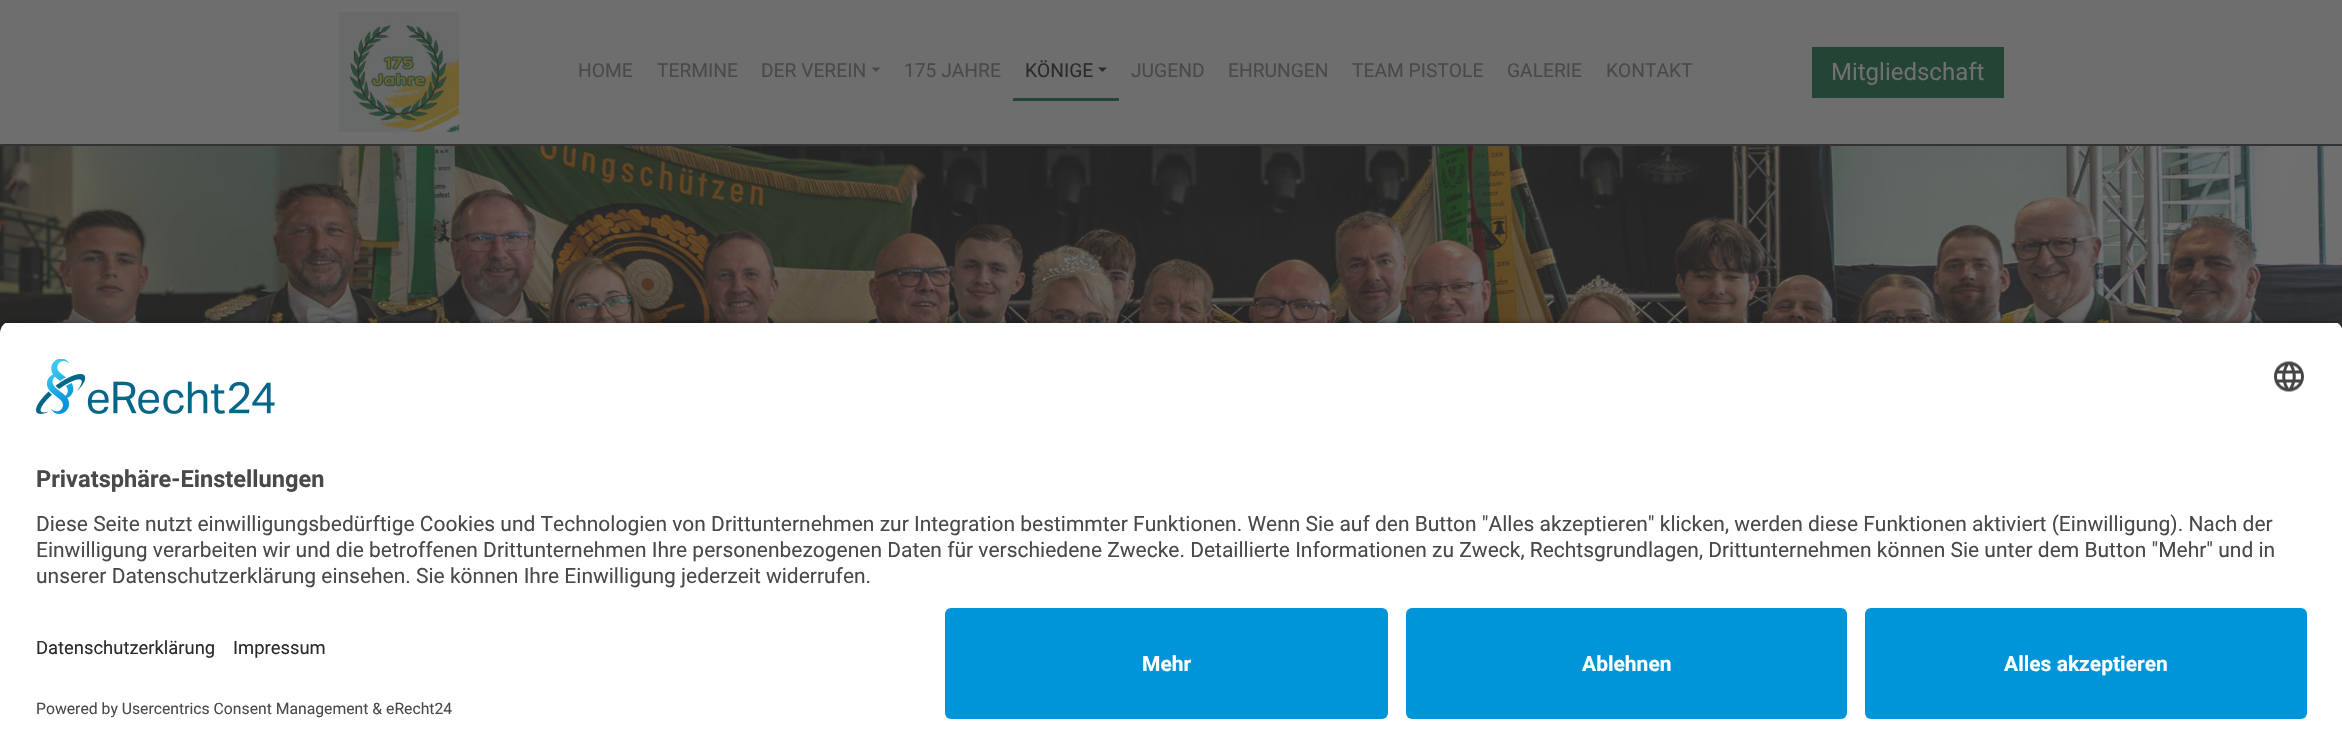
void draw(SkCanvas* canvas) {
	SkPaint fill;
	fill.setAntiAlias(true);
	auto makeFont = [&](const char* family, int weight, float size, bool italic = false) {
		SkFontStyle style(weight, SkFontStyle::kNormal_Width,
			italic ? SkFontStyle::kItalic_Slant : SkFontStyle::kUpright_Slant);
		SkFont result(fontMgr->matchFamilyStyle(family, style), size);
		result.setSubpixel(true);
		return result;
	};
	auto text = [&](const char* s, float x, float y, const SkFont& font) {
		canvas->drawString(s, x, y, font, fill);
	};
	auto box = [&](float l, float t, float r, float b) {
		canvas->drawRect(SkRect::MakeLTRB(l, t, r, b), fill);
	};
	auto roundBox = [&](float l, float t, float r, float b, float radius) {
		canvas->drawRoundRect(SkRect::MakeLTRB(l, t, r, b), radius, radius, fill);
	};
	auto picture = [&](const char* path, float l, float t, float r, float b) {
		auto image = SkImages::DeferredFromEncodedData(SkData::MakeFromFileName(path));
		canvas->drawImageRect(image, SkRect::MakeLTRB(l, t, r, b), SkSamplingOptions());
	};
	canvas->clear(0xFFFFFFFF);
	fill.setColor(0xFF6E6E6F);
	box(0, 0, 2342, 144);
	fill.setColor(0xFF333333);
	box(0, 144, 2342, 146);
	picture("image0.png", 339, 12, 459, 132);
	fill.setColor(0xFF494949);
	canvas->drawPath(SkPathBuilder().moveTo(871.5f, 67.5f).lineTo(880.5f, 67.5f).lineTo(876, 72).close().detach(), fill);
	fill.setColor(0xFF244435);
	box(1013, 98, 1119, 101);
	fill.setColor(0xFF2B2B2B);
	canvas->drawPath(SkPathBuilder().moveTo(1098, 67.5f).lineTo(1107, 67.5f).lineTo(1102.5f, 72).close().detach(), fill);
	fill.setColor(0xFF244435);
	box(1812, 47, 2004, 98);
	picture("image1.png", 0, 146, 2342, 333);
	fill.setColor(0xCC000000);
	fill.setMaskFilter(SkMaskFilter::MakeBlur(kNormal_SkBlurStyle, 5));
	canvas->drawRoundRect(SkRect::MakeLTRB(0, 326, 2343, 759), 12, 12, fill);
	fill.setMaskFilter(nullptr);
	canvas->save();
	canvas->clipPath(SkPathBuilder().moveTo(12, 321).lineTo(2331, 321).cubicTo(2337.5f, 321, 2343, 326.5f, 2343, 333).lineTo(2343, 596).lineTo(0, 596).lineTo(0, 333).cubicTo(0, 326.5f, 5.5f, 321, 12, 321).close().detach(), true);
	fill.setColor(0xFFFFFFFF);
	box(0, 323, 2342, 596);
	canvas->restore();
	picture("image2.png", 36, 359, 275, 414);
	picture("image3.png", 2274, 361, 2304, 392);
	box(0, 596, 2342, 754);
	fill.setColor(0xFF0094D8);
	roundBox(945, 608, 1388, 719, 6);
	roundBox(1406, 608, 1847, 719, 6);
	roundBox(1865, 608, 2307, 719, 6);
	auto font1 = makeFont("Roboto", 400, 19.25f);
	fill.setColor(0xFF494949);
	text("HOME", 578, 77, font1);
	text("TERMINE", 657, 77, font1);
	text("DER VEREIN", 761, 77, font1);
	text("175 JAHRE", 904, 77, font1);
	fill.setColor(0xFF2B2B2B);
	text("KÖNIGE", 1025, 77, font1);
	fill.setColor(0xFF494949);
	text("JUGEND", 1131, 77, font1);
	text("EHRUNGEN", 1228, 77, font1);
	text("TEAM PISTOLE", 1352, 77, font1);
	text("GALERIE", 1507, 77, font1);
	text("KONTAKT", 1606, 77, font1);
	auto font2 = makeFont("Roboto", 400, 24);
	fill.setColor(0xFF707070);
	text("Mitgliedschaft", 1831, 80, font2);
	auto font3 = makeFont("Roboto", 700, 23.6f);
	fill.setColor(0xFF494949);
	text("Privatsphäre-Einstellungen", 36, 487, font3);
	auto font4 = makeFont("Roboto", 400, 21);
	text("Diese Seite nutzt einwilligungsbedürftige Cookies und Technologien von Drittunternehmen zur Integration bestimmter Funktionen. Wenn Sie auf den Button \"Alles akzeptieren\" klicken, werden diese Funktionen aktiviert (Einwilligung). Nach der", 36, 531, font4);
	text("Einwilligung verarbeiten wir und die betroffenen Drittunternehmen Ihre personenbezogenen Daten für verschiedene Zwecke. Detaillierte Informationen zu Zweck, Rechtsgrundlagen, Drittunternehmen können Sie unter dem Button \"Mehr\" und in", 36, 557, font4);
	text("unserer Datenschutzerklärung einsehen. Sie können Ihre Einwilligung jederzeit widerrufen.", 36, 583, font4);
	auto font5 = makeFont("Roboto", 400, 18.4f);
	fill.setColor(0xFF2B2B2B);
	text("Datenschutzerklärung", 36, 654, font5);
	text("Impressum", 233, 654, font5);
	auto font6 = makeFont("Roboto", 400, 15.75f);
	fill.setColor(0xFF494949);
	text("Powered by Usercentrics Consent Management & eRecht24", 36, 714, font6);
	auto font7 = makeFont("Roboto", 700, 21);
	fill.setColor(0xFFFFFFFF);
	text("Mehr", 1142, 671, font7);
	text("Ablehnen", 1582, 671, font7);
	text("Alles akzeptieren", 2004, 671, font7);
}
